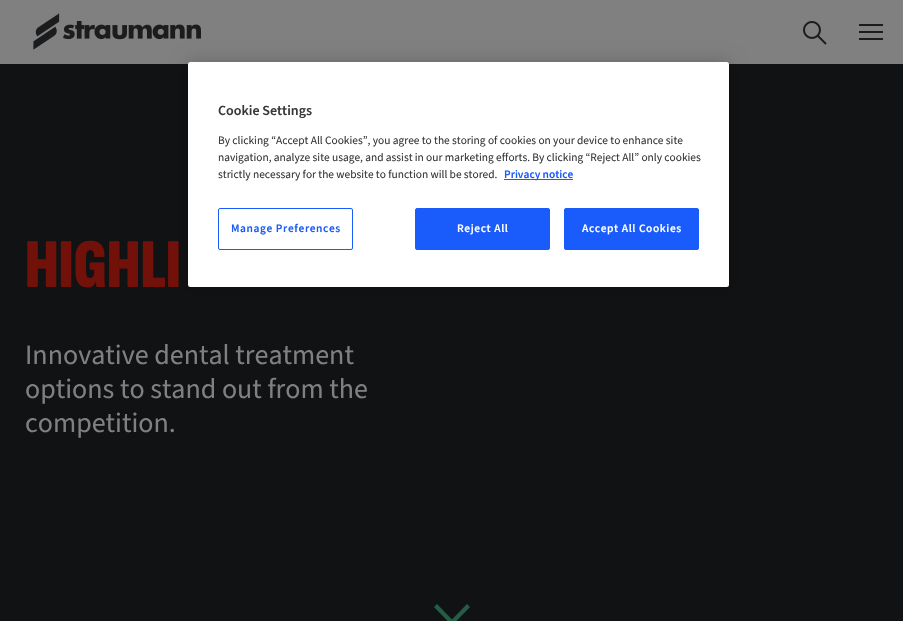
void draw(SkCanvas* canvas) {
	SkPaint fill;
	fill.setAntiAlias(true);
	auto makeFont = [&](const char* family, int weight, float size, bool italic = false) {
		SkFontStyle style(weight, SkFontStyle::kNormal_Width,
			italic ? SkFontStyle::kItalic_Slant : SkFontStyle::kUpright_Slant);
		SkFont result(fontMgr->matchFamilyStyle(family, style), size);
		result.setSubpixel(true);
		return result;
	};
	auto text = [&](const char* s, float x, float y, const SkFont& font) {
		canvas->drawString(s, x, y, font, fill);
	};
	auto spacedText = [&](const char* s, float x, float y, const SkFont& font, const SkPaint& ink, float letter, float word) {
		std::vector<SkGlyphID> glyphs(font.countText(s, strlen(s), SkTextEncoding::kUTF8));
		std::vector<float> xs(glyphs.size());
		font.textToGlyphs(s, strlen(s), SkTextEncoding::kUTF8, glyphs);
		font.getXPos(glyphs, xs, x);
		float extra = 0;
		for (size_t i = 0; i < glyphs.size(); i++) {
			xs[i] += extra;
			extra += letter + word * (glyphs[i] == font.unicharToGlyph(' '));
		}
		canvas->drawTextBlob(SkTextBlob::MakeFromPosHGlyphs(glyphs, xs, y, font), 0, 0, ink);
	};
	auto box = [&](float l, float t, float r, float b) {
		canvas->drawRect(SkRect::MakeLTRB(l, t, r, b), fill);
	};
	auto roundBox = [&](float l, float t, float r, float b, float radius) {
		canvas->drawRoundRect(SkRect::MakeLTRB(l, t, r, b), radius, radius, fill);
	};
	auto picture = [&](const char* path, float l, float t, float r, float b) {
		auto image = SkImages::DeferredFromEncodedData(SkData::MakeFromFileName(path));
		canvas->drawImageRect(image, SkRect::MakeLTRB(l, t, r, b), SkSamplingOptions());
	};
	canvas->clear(0xFF808080);
	picture("image0.png", 33, 13, 201, 50);
	picture("image1.png", 803, 21, 827, 45);
	picture("image2.png", 859, 24, 883, 40);
	fill.setColor(0xFF111213);
	box(0, 64, 903, 621);
	fill.setColor(0x33000000);
	fill.setMaskFilter(SkMaskFilter::MakeBlur(kNormal_SkBlurStyle, 9));
	canvas->drawRoundRect(SkRect::MakeLTRB(188, 62, 729, 287), 2.5f, 2.5f, fill);
	fill.setMaskFilter(nullptr);
	fill.setColor(0xFFFFFFFF);
	roundBox(188, 62, 729, 287, 2.5f);
	fill.setColor(0xFF1A5BFB);
	box(504, 179, 573, 180);
	fill.setStyle(SkPaint::kStroke_Style);
	fill.setStrokeWidth(1);
	canvas->drawRoundRect(SkRect::MakeLTRB(218.5f, 208.5f, 352.5f, 249.5f), 1.5f, 1.5f, fill);
	fill.setStyle(SkPaint::kFill_Style);
	canvas->drawRoundRect(SkRect::MakeLTRB(415.5f, 208.5f, 549.5f, 249.5f), 1.5f, 1.5f, fill);
	fill.setStyle(SkPaint::kStroke_Style);
	canvas->drawRoundRect(SkRect::MakeLTRB(415.5f, 208.5f, 549.5f, 249.5f), 1.5f, 1.5f, fill);
	fill.setStyle(SkPaint::kFill_Style);
	canvas->drawRoundRect(SkRect::MakeLTRB(564.5f, 208.5f, 698.5f, 249.5f), 1.5f, 1.5f, fill);
	fill.setStyle(SkPaint::kStroke_Style);
	canvas->drawRoundRect(SkRect::MakeLTRB(564.5f, 208.5f, 698.5f, 249.5f), 1.5f, 1.5f, fill);
	fill.setStyle(SkPaint::kFill_Style);
	fill.setColor(0xFF235D46);
	canvas->drawPath(SkPathBuilder().moveTo(467, 604).lineTo(452, 619.5f).lineTo(437, 604).lineTo(434, 607).lineTo(452, 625.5f).lineTo(470, 607).close().detach(), fill);
	auto font1 = makeFont("Source Sans 3", 600, 14);
	fill.setColor(0xFF36393A);
	text("Cookie Settings", 218, 115, font1);
	auto font2 = makeFont("Source Sans 3", 400, 11.4f);
	text("By clicking “Accept All Cookies”, you agree to the storing of cookies on your device to enhance site", 218, 144, font2);
	text("navigation, analyze site usage, and assist in our marketing efforts. By clicking “Reject All” only cookies", 218, 161, font2);
	text("strictly necessary for the website to function will be stored.", 218, 178, font2);
	auto font3 = makeFont("Source Sans 3", 600, 11.4f);
	fill.setColor(0xFF1A5BFB);
	text("Privacy notice", 504, 178, font3);
	spacedText("Manage Preferences", 231, 232, font3, fill, 0.6f, 0);
	fill.setColor(0xFFFFFFFF);
	spacedText("Reject All", 457, 232, font3, fill, 0.6f, 0);
	spacedText("Accept All Cookies", 582, 232, font3, fill, 0.6f, 0);
	auto font4 = makeFont("Sofia Sans Extra Condensed", 900, 70);
	fill.setColor(0xFF72100A);
	text("HIGHLI", 25, 287, font4);
	auto font5 = makeFont("Source Sans 3", 400, 28);
	fill.setColor(0xFF808080);
	text("Innovative dental treatment", 25, 364, font5);
	text("options to stand out from the", 25, 398, font5);
	text("competition.", 25, 432, font5);
}
